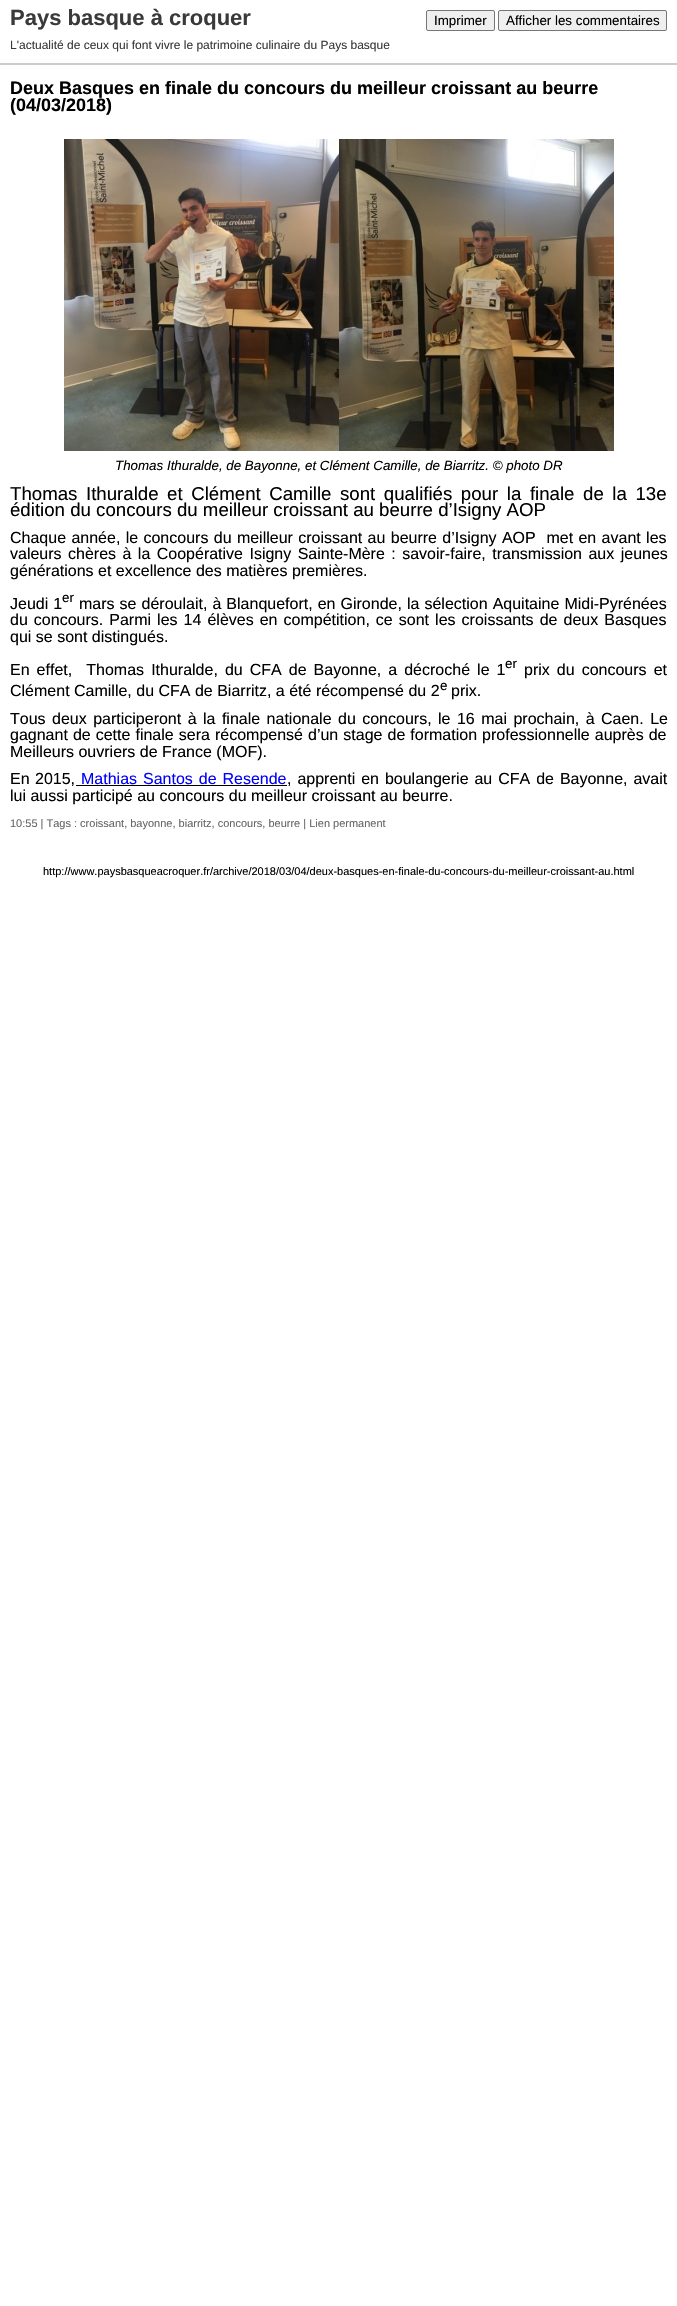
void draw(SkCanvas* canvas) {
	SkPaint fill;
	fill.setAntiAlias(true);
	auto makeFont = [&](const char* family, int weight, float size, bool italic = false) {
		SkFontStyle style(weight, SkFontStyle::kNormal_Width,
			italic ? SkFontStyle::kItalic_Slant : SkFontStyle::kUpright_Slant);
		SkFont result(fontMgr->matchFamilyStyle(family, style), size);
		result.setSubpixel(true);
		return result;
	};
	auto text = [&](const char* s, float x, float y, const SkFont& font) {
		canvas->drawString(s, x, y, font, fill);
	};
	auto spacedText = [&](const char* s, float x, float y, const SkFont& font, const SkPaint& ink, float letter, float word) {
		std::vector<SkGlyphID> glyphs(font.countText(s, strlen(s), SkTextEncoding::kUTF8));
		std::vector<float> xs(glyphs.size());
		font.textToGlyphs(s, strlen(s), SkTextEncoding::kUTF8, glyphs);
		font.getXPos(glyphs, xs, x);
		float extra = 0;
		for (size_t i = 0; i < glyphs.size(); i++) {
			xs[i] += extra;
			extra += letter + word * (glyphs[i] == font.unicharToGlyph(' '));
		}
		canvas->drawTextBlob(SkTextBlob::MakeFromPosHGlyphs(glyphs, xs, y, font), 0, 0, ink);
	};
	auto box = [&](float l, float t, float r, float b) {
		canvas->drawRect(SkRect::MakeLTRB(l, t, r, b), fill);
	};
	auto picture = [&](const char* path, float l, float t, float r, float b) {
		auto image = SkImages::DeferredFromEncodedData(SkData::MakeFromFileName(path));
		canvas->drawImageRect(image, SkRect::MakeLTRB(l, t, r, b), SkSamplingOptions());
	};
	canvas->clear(0xFFFFFFFF);
	fill.setColor(0xFFCCCCCC);
	box(0, 63, 677, 65);
	fill.setColor(0xFFEFEFEF);
	canvas->drawRoundRect(SkRect::MakeLTRB(426.5f, 10.5f, 494.5f, 30.5f), 1.5f, 1.5f, fill);
	fill.setStyle(SkPaint::kStroke_Style);
	fill.setStrokeWidth(1);
	fill.setColor(0xFF767676);
	canvas->drawRoundRect(SkRect::MakeLTRB(426.5f, 10.5f, 494.5f, 30.5f), 1.5f, 1.5f, fill);
	fill.setStyle(SkPaint::kFill_Style);
	fill.setColor(0xFFEFEFEF);
	canvas->drawRoundRect(SkRect::MakeLTRB(498.5f, 10.5f, 666.5f, 30.5f), 1.5f, 1.5f, fill);
	fill.setStyle(SkPaint::kStroke_Style);
	fill.setColor(0xFF767676);
	canvas->drawRoundRect(SkRect::MakeLTRB(498.5f, 10.5f, 666.5f, 30.5f), 1.5f, 1.5f, fill);
	picture("image0.png", 64, 139, 614, 451);
	fill.setStyle(SkPaint::kFill_Style);
	fill.setColor(0xFF000000);
	box(76, 785, 287, 786);
	auto font1 = makeFont("Liberation Sans", 700, 22);
	fill.setColor(0xFF3A3A3A);
	text("Pays basque à croquer", 10, 25, font1);
	auto font2 = makeFont("Liberation Sans", 400, 13.35f);
	fill.setColor(0xFF000000);
	text("Imprimer", 434, 25, font2);
	text("Afficher les commentaires", 506, 25, font2);
	auto font3 = makeFont("Liberation Sans", 400, 12);
	fill.setColor(0xFF3A3A3A);
	text("L'actualité de ceux qui font vivre le patrimoine culinaire du Pays basque", 10, 49, font3);
	auto font4 = makeFont("Liberation Sans", 700, 18);
	fill.setColor(0xFF000000);
	text("Deux Basques en finale du concours du meilleur croissant au beurre", 10, 94, font4);
	text("(04/03/2018)", 10, 111, font4);
	auto font5 = makeFont("Liberation Sans", 400, 13.35f, true);
	text("Thomas Ithuralde, de Bayonne, et Clément Camille, de Biarritz. © photo DR", 115, 470, font5);
	auto font6 = makeFont("Liberation Sans", 400, 18.65f);
	spacedText("Thomas Ithuralde et Clément Camille sont qualifiés pour la finale de la 13e", 10, 500, font6, fill, 0, 3.4f);
	text("édition du concours du meilleur croissant au beurre d’Isigny AOP", 10, 516, font6);
	auto font7 = makeFont("Liberation Sans", 400, 16);
	spacedText("Chaque année, le concours du meilleur croissant au beurre d’Isigny AOP  met en avant les", 10, 543, font7, fill, 0, 0.9f);
	spacedText("valeurs chères à la Coopérative Isigny Sainte-Mère : savoir-faire, transmission aux jeunes", 10, 559, font7, fill, 0, 2);
	text("générations et excellence des matières premières.", 10, 576, font7);
	spacedText("Jeudi 1", 10, 609, font7, fill, 0, 0.6f);
	text("er", 62, 602, font2);
	spacedText("mars se déroulait, à Blanquefort, en Gironde, la sélection Aquitaine Midi-Pyrénées", 79, 609, font7, fill, 0, 0.6f);
	spacedText("du concours. Parmi les 14 élèves en compétition, ce sont les croissants de deux Basques", 10, 625, font7, fill, 0, 1.6f);
	text("qui se sont distingués.", 10, 642, font7);
	spacedText("En effet,  Thomas Ithuralde, du CFA de Bayonne, a décroché le 1", 10, 675, font7, fill, 0, 2.6f);
	text("er", 505, 668, font2);
	spacedText("prix du concours et", 524, 675, font7, fill, 0, 2.6f);
	text("Clément Camille, du CFA de Biarritz, a été récompensé du 2", 10, 696, font7);
	text("e", 440, 690, font2);
	text("prix.", 451, 696, font7);
	spacedText("Tous deux participeront à la finale nationale du concours, le 16 mai prochain, à Caen. Le", 10, 724, font7, fill, 0, 2);
	spacedText("gagnant de cette finale sera récompensé d’un stage de formation professionnelle auprès de", 10, 740, font7, fill, 0, 0.6f);
	text("Meilleurs ouvriers de France (MOF).", 10, 757, font7);
	spacedText("En 2015,", 10, 784, font7, fill, 0, 1);
	fill.setColor(0xFF0000FF);
	spacedText("Mathias Santos de Resende", 81, 784, font7, fill, 0, 1.5f);
	fill.setColor(0xFF000000);
	spacedText(", apprenti en boulangerie au CFA de Bayonne, avait", 287, 784, font7, fill, 0, 1.5f);
	text("lui aussi participé au concours du meilleur croissant au beurre.", 10, 801, font7);
	auto font8 = makeFont("Liberation Sans", 400, 11);
	fill.setColor(0xFF666666);
	text("10:55 | Tags : croissant, bayonne, biarritz, concours, beurre | Lien permanent", 10, 827, font8);
	fill.setColor(0xFF000000);
	text("http://www.paysbasqueacroquer.fr/archive/2018/03/04/deux-basques-en-finale-du-concours-du-meilleur-croissant-au.html", 43, 875, font8);
}
